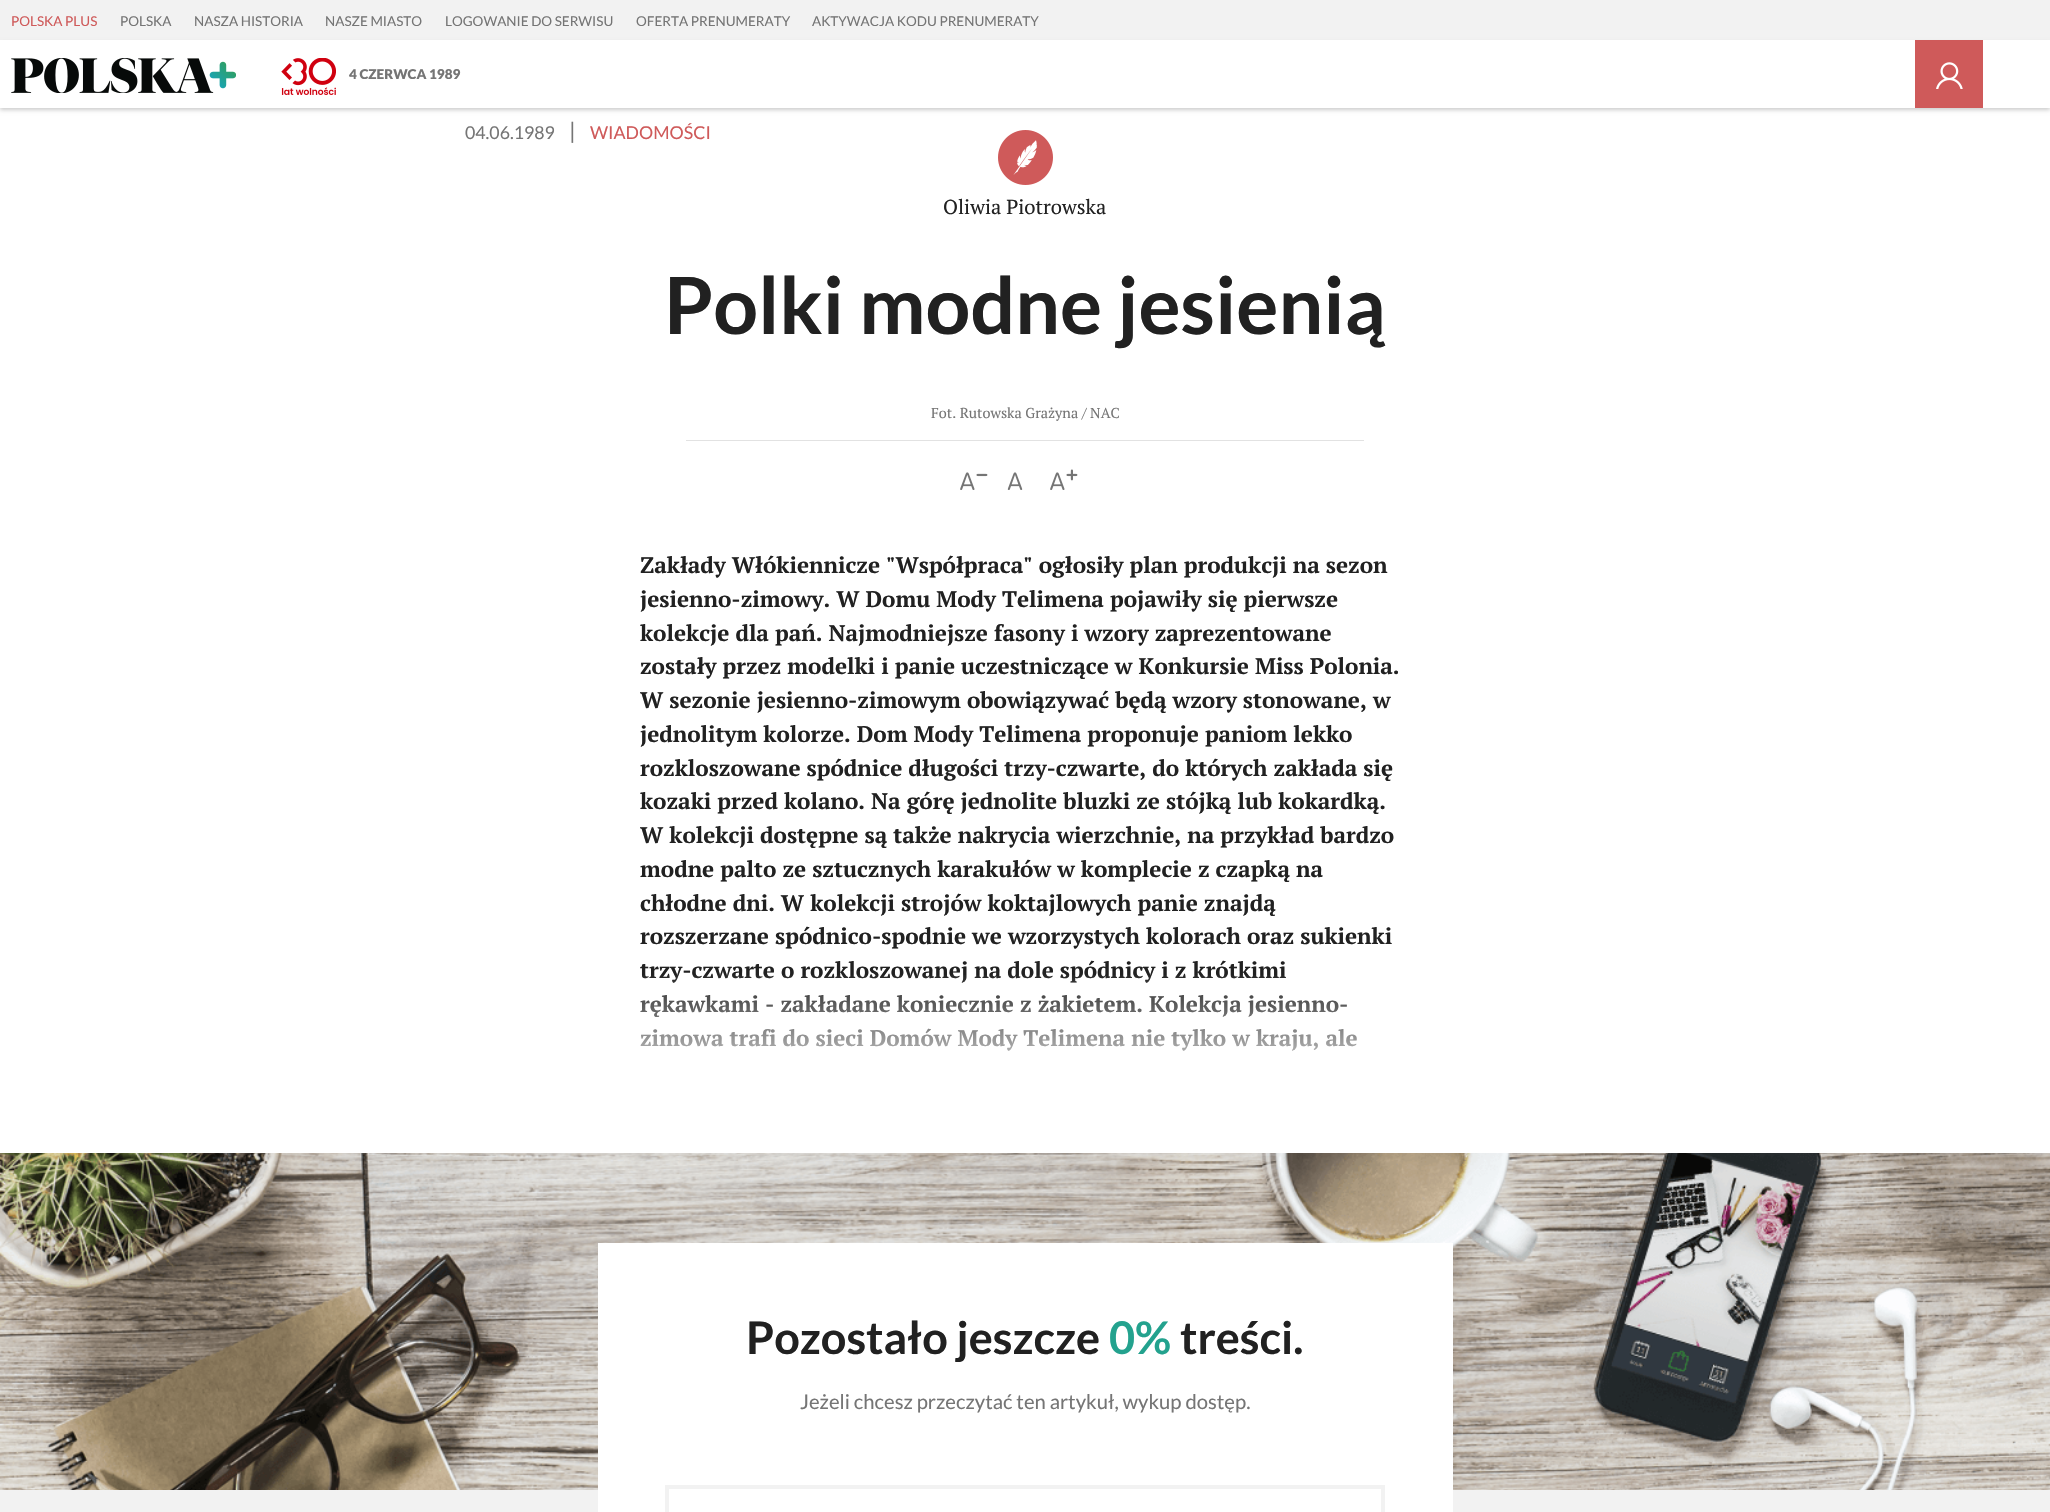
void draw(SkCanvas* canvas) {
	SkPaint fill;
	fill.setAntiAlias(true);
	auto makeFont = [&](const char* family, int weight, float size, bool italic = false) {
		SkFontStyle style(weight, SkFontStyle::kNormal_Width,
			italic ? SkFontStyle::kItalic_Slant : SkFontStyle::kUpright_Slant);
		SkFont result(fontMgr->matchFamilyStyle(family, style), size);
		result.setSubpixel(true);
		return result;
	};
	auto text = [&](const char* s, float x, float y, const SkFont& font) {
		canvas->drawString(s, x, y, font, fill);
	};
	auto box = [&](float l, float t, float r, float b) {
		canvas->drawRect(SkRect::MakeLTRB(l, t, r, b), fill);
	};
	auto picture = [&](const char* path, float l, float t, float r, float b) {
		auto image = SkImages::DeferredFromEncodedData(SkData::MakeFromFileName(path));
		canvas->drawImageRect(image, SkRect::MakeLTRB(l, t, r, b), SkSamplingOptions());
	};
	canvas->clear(0xFFFFFFFF);
	fill.setColor(0xFFF2F2F2);
	box(0, 0, 2050, 40);
	fill.setColor(0x33000000);
	fill.setMaskFilter(SkMaskFilter::MakeBlur(kNormal_SkBlurStyle, 2));
	canvas->drawRect(SkRect::MakeLTRB(0, 43, 2050, 110), fill);
	fill.setMaskFilter(nullptr);
	fill.setColor(0xFFFFFFFF);
	box(0, 40, 2050, 108);
	picture("image0.png", 11, 58, 236, 93);
	picture("image1.png", 281, 58, 336, 95);
	fill.setColor(0xFFCF5A5A);
	box(1915, 40, 1983, 108);
	picture("image2.png", 1936, 62, 1963, 89);
	picture("image3.png", 998, 130, 1053, 185);
	fill.setColor(0xFFE2E2E2);
	box(686, 440, 1364, 441);
	picture("image4.png", 960, 472, 988, 490);
	picture("image5.png", 1007, 472, 1023, 490);
	picture("image6.png", 1050, 469, 1078, 490);
	fill.setColor(0xFFF2F2F2);
	box(0, 1490, 2050, 1512);
	picture("image7.png", 0, 1153, 2050, 1490);
	fill.setColor(0xFFFFFFFF);
	box(598, 1243, 1453, 1512);
	fill.setStyle(SkPaint::kStroke_Style);
	fill.setStrokeWidth(4);
	fill.setColor(0xFFF2F2F2);
	canvas->drawRect(SkRect::MakeLTRB(667, 1487, 1383, 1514), fill);
	auto font1 = makeFont("Lato", 400, 13.5f);
	fill.setStyle(SkPaint::kFill_Style);
	fill.setColor(0xFFCF5A5A);
	text("POLSKA PLUS", 11, 26, font1);
	fill.setColor(0xFF757575);
	text("POLSKA", 120, 26, font1);
	text("NASZA HISTORIA", 194, 26, font1);
	text("NASZE MIASTO", 325, 26, font1);
	text("LOGOWANIE DO SERWISU", 445, 26, font1);
	text("OFERTA PRENUMERATY", 636, 26, font1);
	text("AKTYWACJA KODU PRENUMERATY", 812, 26, font1);
	auto font2 = makeFont("Lato", 900, 13.5f);
	text("4 CZERWCA 1989", 349, 79, font2);
	auto font3 = makeFont("Lato", 400, 17.75f);
	text("04.06.1989", 465, 139, font3);
	auto font4 = makeFont("Lato", 400, 22.5f);
	text("|", 569, 139, font4);
	fill.setColor(0xFFCF5A5A);
	text("WIADOMOŚCI", 590, 139, font3);
	auto font5 = makeFont("PT Serif", 400, 20.25f);
	fill.setColor(0xFF212121);
	text("Oliwia Piotrowska", 943, 214, font5);
	auto font6 = makeFont("Lato", 700, 78.75f);
	text("Polki modne jesienią", 664, 334, font6);
	auto font7 = makeFont("PT Serif", 400, 14.4f);
	fill.setColor(0xFF757575);
	text("Fot. Rutowska Grażyna / NAC", 931, 418, font7);
	auto font8 = makeFont("PT Serif", 700, 22.5f);
	fill.setColor(0xFF212121);
	text("Zakłady Włókiennicze \"Współpraca\" ogłosiły plan produkcji na sezon", 640, 573, font8);
	text("jesienno-zimowy. W Domu Mody Telimena pojawiły się pierwsze", 640, 607, font8);
	text("kolekcje dla pań. Najmodniejsze fasony i wzory zaprezentowane", 640, 641, font8);
	text("zostały przez modelki i panie uczestniczące w Konkursie Miss Polonia.", 640, 674, font8);
	text("W sezonie jesienno-zimowym obowiązywać będą wzory stonowane, w", 640, 708, font8);
	text("jednolitym kolorze. Dom Mody Telimena proponuje paniom lekko", 640, 742, font8);
	text("rozkloszowane spódnice długości trzy-czwarte, do których zakłada się", 640, 776, font8);
	text("kozaki przed kolano. Na górę jednolite bluzki ze stójką lub kokardką.", 640, 809, font8);
	text("W kolekcji dostępne są także nakrycia wierzchnie, na przykład bardzo", 640, 843, font8);
	text("modne palto ze sztucznych karakułów w komplecie z czapką na", 640, 877, font8);
	text("chłodne dni. W kolekcji strojów koktajlowych panie znajdą", 640, 911, font8);
	text("rozszerzane spódnico-spodnie we wzorzystych kolorach oraz sukienki", 640, 944, font8);
	text("trzy-czwarte o rozkloszowanej na dole spódnicy i z krótkimi", 640, 978, font8);
	text("rękawkami - zakładane koniecznie z żakietem. Kolekcja jesienno-", 640, 1012, font8);
	text("zimowa trafi do sieci Domów Mody Telimena nie tylko w kraju, ale", 640, 1046, font8);
	{
		const SkColor colors[] = {0x00FFFFFF, 0xFFFFFFFF};
		const float stops[] = {0, 0.7f};
		const SkPoint ends[] = {{1025, 972}, {1025, 1153}};
		fill.setShader(SkGradientShader::MakeLinear(ends, colors, stops, 2, SkTileMode::kClamp));
		fill.setAlpha(255);
	}
	box(640, 975, 1357, 1051);
	auto font9 = makeFont("Lato", 700, 45);
	fill.setShader(nullptr);
	fill.setColor(0xFF212121);
	text("Pozostało jeszcze", 746, 1354, font9);
	fill.setColor(0xFF23A28E);
	text("0%", 1109, 1354, font9);
	fill.setColor(0xFF212121);
	text("treści.", 1180, 1354, font9);
	auto font10 = makeFont("Lato", 400, 20.25f);
	fill.setColor(0xFF757575);
	text("Jeżeli chcesz przeczytać ten artykuł, wykup dostęp.", 800, 1409, font10);
}
